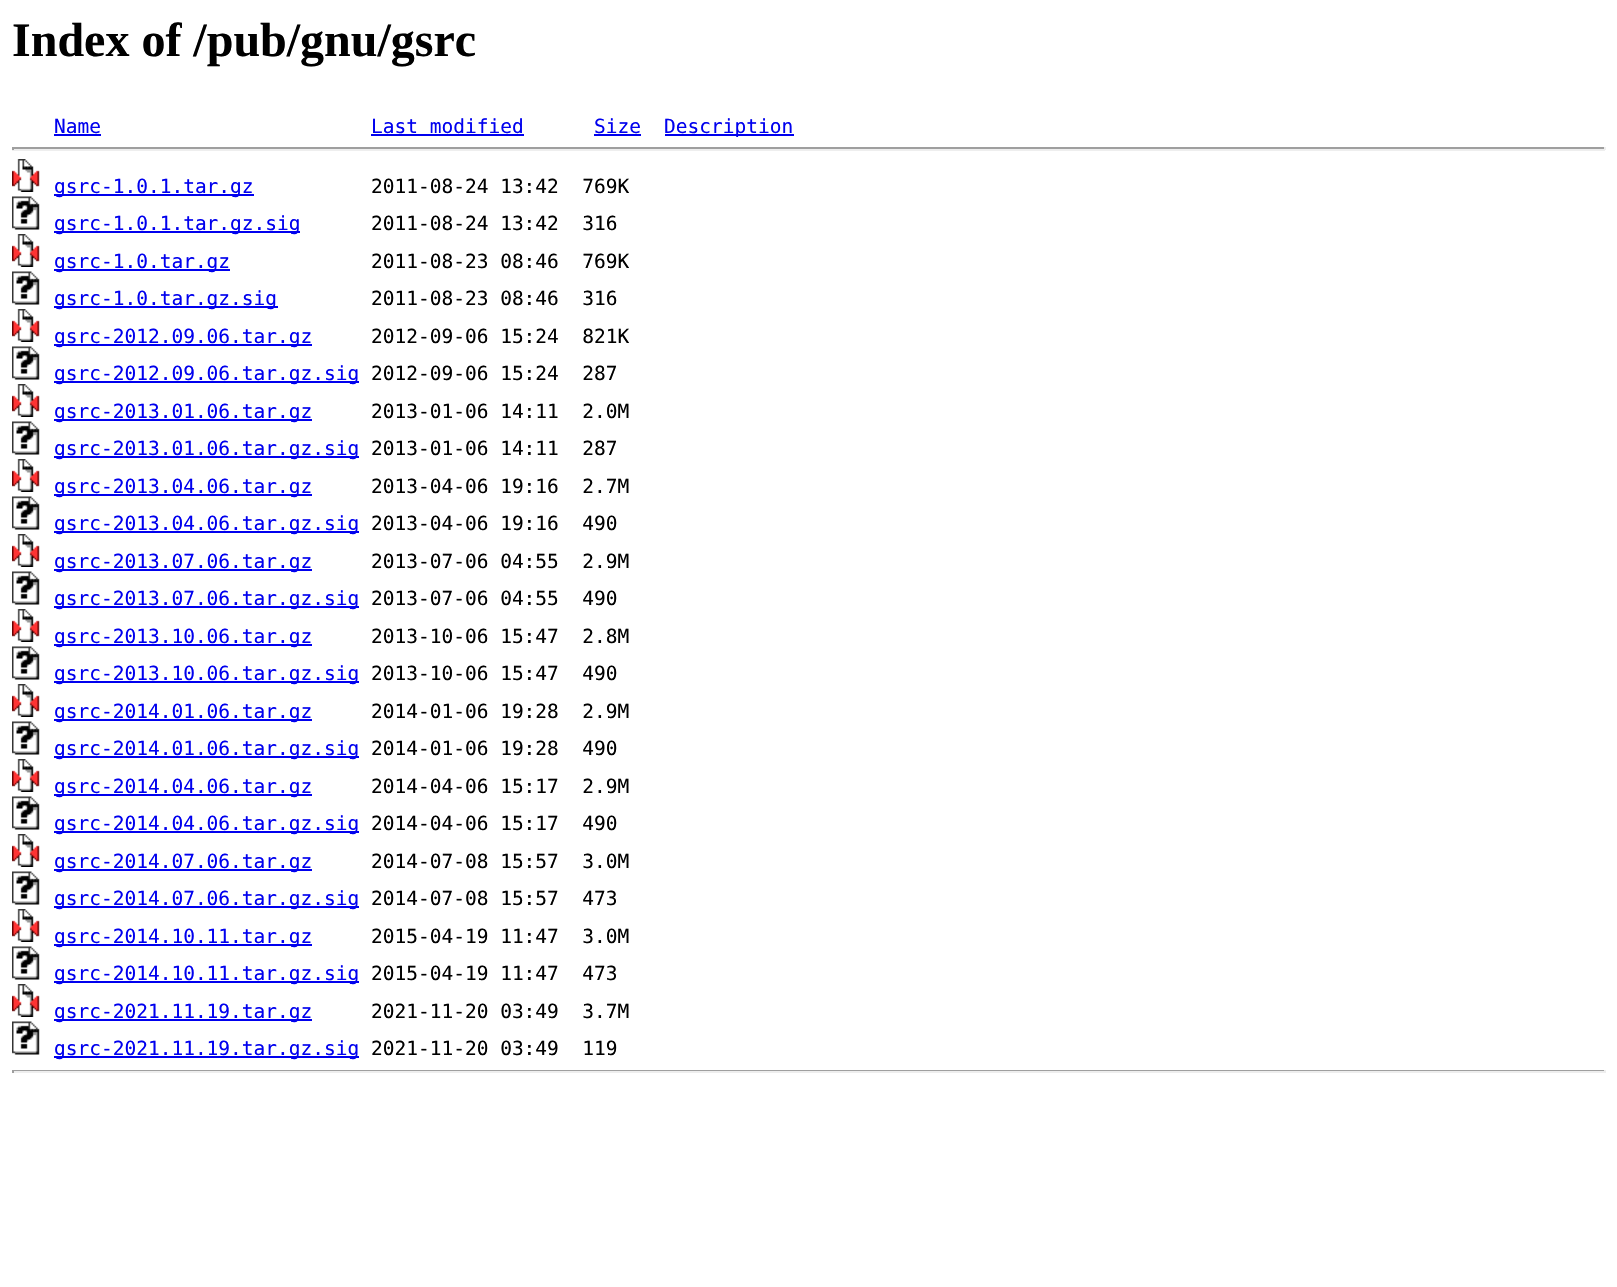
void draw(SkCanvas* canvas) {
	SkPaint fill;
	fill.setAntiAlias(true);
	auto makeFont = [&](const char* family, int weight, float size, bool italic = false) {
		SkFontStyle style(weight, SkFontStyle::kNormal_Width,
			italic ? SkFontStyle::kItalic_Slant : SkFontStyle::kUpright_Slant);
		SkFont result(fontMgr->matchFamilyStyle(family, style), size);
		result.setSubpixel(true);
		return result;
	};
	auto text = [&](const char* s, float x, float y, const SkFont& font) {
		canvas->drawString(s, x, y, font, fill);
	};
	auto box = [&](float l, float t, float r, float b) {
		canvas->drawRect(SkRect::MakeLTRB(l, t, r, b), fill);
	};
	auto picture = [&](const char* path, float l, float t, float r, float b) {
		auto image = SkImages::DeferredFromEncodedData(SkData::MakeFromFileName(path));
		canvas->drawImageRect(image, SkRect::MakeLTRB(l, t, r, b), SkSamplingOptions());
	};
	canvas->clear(0xFFFFFFFF);
	fill.setColor(0xFF0000EE);
	box(54, 134, 101, 136);
	box(371, 134, 524, 136);
	box(594, 134, 641, 136);
	box(665, 134, 794, 136);
	fill.setColor(0xFF9F9F9F);
	box(12, 147, 1605, 149);
	fill.setColor(0xFFEEEEEE);
	box(1604, 147, 1606, 150);
	box(12, 149, 1605, 151);
	fill.setColor(0xFF9F9F9F);
	box(12, 147, 14, 150);
	picture("image0.png", 12, 159, 40, 192);
	fill.setColor(0xFF0000EE);
	box(54, 194, 254, 196);
	picture("image1.png", 12, 196, 40, 230);
	box(54, 231, 300, 233);
	picture("image0.png", 12, 234, 40, 267);
	box(54, 269, 230, 271);
	picture("image1.png", 12, 271, 40, 305);
	box(54, 306, 278, 308);
	picture("image0.png", 12, 309, 40, 342);
	box(54, 344, 312, 346);
	picture("image1.png", 12, 346, 40, 380);
	box(54, 381, 359, 383);
	picture("image0.png", 12, 384, 40, 417);
	box(54, 419, 312, 421);
	picture("image1.png", 12, 421, 40, 455);
	box(54, 456, 359, 458);
	picture("image0.png", 12, 459, 40, 492);
	box(54, 494, 312, 496);
	picture("image1.png", 12, 496, 40, 530);
	box(54, 531, 359, 533);
	picture("image0.png", 12, 534, 40, 567);
	box(54, 569, 312, 571);
	picture("image1.png", 12, 571, 40, 605);
	box(54, 606, 359, 608);
	picture("image0.png", 12, 609, 40, 642);
	box(54, 644, 312, 646);
	picture("image1.png", 12, 646, 40, 680);
	box(54, 681, 359, 683);
	picture("image0.png", 12, 684, 40, 717);
	box(54, 719, 312, 721);
	picture("image1.png", 12, 721, 40, 755);
	box(54, 756, 359, 758);
	picture("image0.png", 12, 759, 40, 792);
	box(54, 794, 312, 796);
	picture("image1.png", 12, 796, 40, 830);
	box(54, 831, 359, 833);
	picture("image0.png", 12, 834, 40, 867);
	box(54, 869, 312, 871);
	picture("image1.png", 12, 871, 40, 905);
	box(54, 906, 359, 908);
	picture("image0.png", 12, 909, 40, 942);
	box(54, 944, 312, 946);
	picture("image1.png", 12, 946, 40, 980);
	box(54, 981, 359, 983);
	picture("image0.png", 12, 984, 40, 1017);
	box(54, 1019, 312, 1021);
	picture("image1.png", 12, 1021, 40, 1055);
	box(54, 1056, 359, 1058);
	fill.setColor(0xFF9F9F9F);
	box(12, 1070, 1605, 1071);
	fill.setColor(0xFFEEEEEE);
	box(1604, 1070, 1606, 1073);
	box(12, 1071, 1605, 1073);
	fill.setColor(0xFF9F9F9F);
	box(12, 1070, 14, 1073);
	auto font1 = makeFont("Liberation Serif", 700, 48);
	fill.setColor(0xFF000000);
	text("Index of /pub/gnu/gsrc", 12, 56, font1);
	auto font2 = makeFont("DejaVu Sans Mono", 400, 19.5f);
	fill.setColor(0xFF0000EE);
	text("Name", 54, 133, font2);
	text("Last modified", 371, 133, font2);
	text("Size", 594, 133, font2);
	text("Description", 664, 133, font2);
	text("gsrc-1.0.1.tar.gz", 54, 193, font2);
	fill.setColor(0xFF000000);
	text("2011-08-24 13:42  769K", 371, 193, font2);
	fill.setColor(0xFF0000EE);
	text("gsrc-1.0.1.tar.gz.sig", 54, 230, font2);
	fill.setColor(0xFF000000);
	text("2011-08-24 13:42  316", 371, 230, font2);
	fill.setColor(0xFF0000EE);
	text("gsrc-1.0.tar.gz", 54, 268, font2);
	fill.setColor(0xFF000000);
	text("2011-08-23 08:46  769K", 371, 268, font2);
	fill.setColor(0xFF0000EE);
	text("gsrc-1.0.tar.gz.sig", 54, 305, font2);
	fill.setColor(0xFF000000);
	text("2011-08-23 08:46  316", 371, 305, font2);
	fill.setColor(0xFF0000EE);
	text("gsrc-2012.09.06.tar.gz", 54, 343, font2);
	fill.setColor(0xFF000000);
	text("2012-09-06 15:24  821K", 371, 343, font2);
	fill.setColor(0xFF0000EE);
	text("gsrc-2012.09.06.tar.gz.sig", 54, 380, font2);
	fill.setColor(0xFF000000);
	text("2012-09-06 15:24  287", 371, 380, font2);
	fill.setColor(0xFF0000EE);
	text("gsrc-2013.01.06.tar.gz", 54, 418, font2);
	fill.setColor(0xFF000000);
	text("2013-01-06 14:11  2.0M", 371, 418, font2);
	fill.setColor(0xFF0000EE);
	text("gsrc-2013.01.06.tar.gz.sig", 54, 455, font2);
	fill.setColor(0xFF000000);
	text("2013-01-06 14:11  287", 371, 455, font2);
	fill.setColor(0xFF0000EE);
	text("gsrc-2013.04.06.tar.gz", 54, 493, font2);
	fill.setColor(0xFF000000);
	text("2013-04-06 19:16  2.7M", 371, 493, font2);
	fill.setColor(0xFF0000EE);
	text("gsrc-2013.04.06.tar.gz.sig", 54, 530, font2);
	fill.setColor(0xFF000000);
	text("2013-04-06 19:16  490", 371, 530, font2);
	fill.setColor(0xFF0000EE);
	text("gsrc-2013.07.06.tar.gz", 54, 568, font2);
	fill.setColor(0xFF000000);
	text("2013-07-06 04:55  2.9M", 371, 568, font2);
	fill.setColor(0xFF0000EE);
	text("gsrc-2013.07.06.tar.gz.sig", 54, 605, font2);
	fill.setColor(0xFF000000);
	text("2013-07-06 04:55  490", 371, 605, font2);
	fill.setColor(0xFF0000EE);
	text("gsrc-2013.10.06.tar.gz", 54, 643, font2);
	fill.setColor(0xFF000000);
	text("2013-10-06 15:47  2.8M", 371, 643, font2);
	fill.setColor(0xFF0000EE);
	text("gsrc-2013.10.06.tar.gz.sig", 54, 680, font2);
	fill.setColor(0xFF000000);
	text("2013-10-06 15:47  490", 371, 680, font2);
	fill.setColor(0xFF0000EE);
	text("gsrc-2014.01.06.tar.gz", 54, 718, font2);
	fill.setColor(0xFF000000);
	text("2014-01-06 19:28  2.9M", 371, 718, font2);
	fill.setColor(0xFF0000EE);
	text("gsrc-2014.01.06.tar.gz.sig", 54, 755, font2);
	fill.setColor(0xFF000000);
	text("2014-01-06 19:28  490", 371, 755, font2);
	fill.setColor(0xFF0000EE);
	text("gsrc-2014.04.06.tar.gz", 54, 793, font2);
	fill.setColor(0xFF000000);
	text("2014-04-06 15:17  2.9M", 371, 793, font2);
	fill.setColor(0xFF0000EE);
	text("gsrc-2014.04.06.tar.gz.sig", 54, 830, font2);
	fill.setColor(0xFF000000);
	text("2014-04-06 15:17  490", 371, 830, font2);
	fill.setColor(0xFF0000EE);
	text("gsrc-2014.07.06.tar.gz", 54, 868, font2);
	fill.setColor(0xFF000000);
	text("2014-07-08 15:57  3.0M", 371, 868, font2);
	fill.setColor(0xFF0000EE);
	text("gsrc-2014.07.06.tar.gz.sig", 54, 905, font2);
	fill.setColor(0xFF000000);
	text("2014-07-08 15:57  473", 371, 905, font2);
	fill.setColor(0xFF0000EE);
	text("gsrc-2014.10.11.tar.gz", 54, 943, font2);
	fill.setColor(0xFF000000);
	text("2015-04-19 11:47  3.0M", 371, 943, font2);
	fill.setColor(0xFF0000EE);
	text("gsrc-2014.10.11.tar.gz.sig", 54, 980, font2);
	fill.setColor(0xFF000000);
	text("2015-04-19 11:47  473", 371, 980, font2);
	fill.setColor(0xFF0000EE);
	text("gsrc-2021.11.19.tar.gz", 54, 1018, font2);
	fill.setColor(0xFF000000);
	text("2021-11-20 03:49  3.7M", 371, 1018, font2);
	fill.setColor(0xFF0000EE);
	text("gsrc-2021.11.19.tar.gz.sig", 54, 1055, font2);
	fill.setColor(0xFF000000);
	text("2021-11-20 03:49  119", 371, 1055, font2);
}
